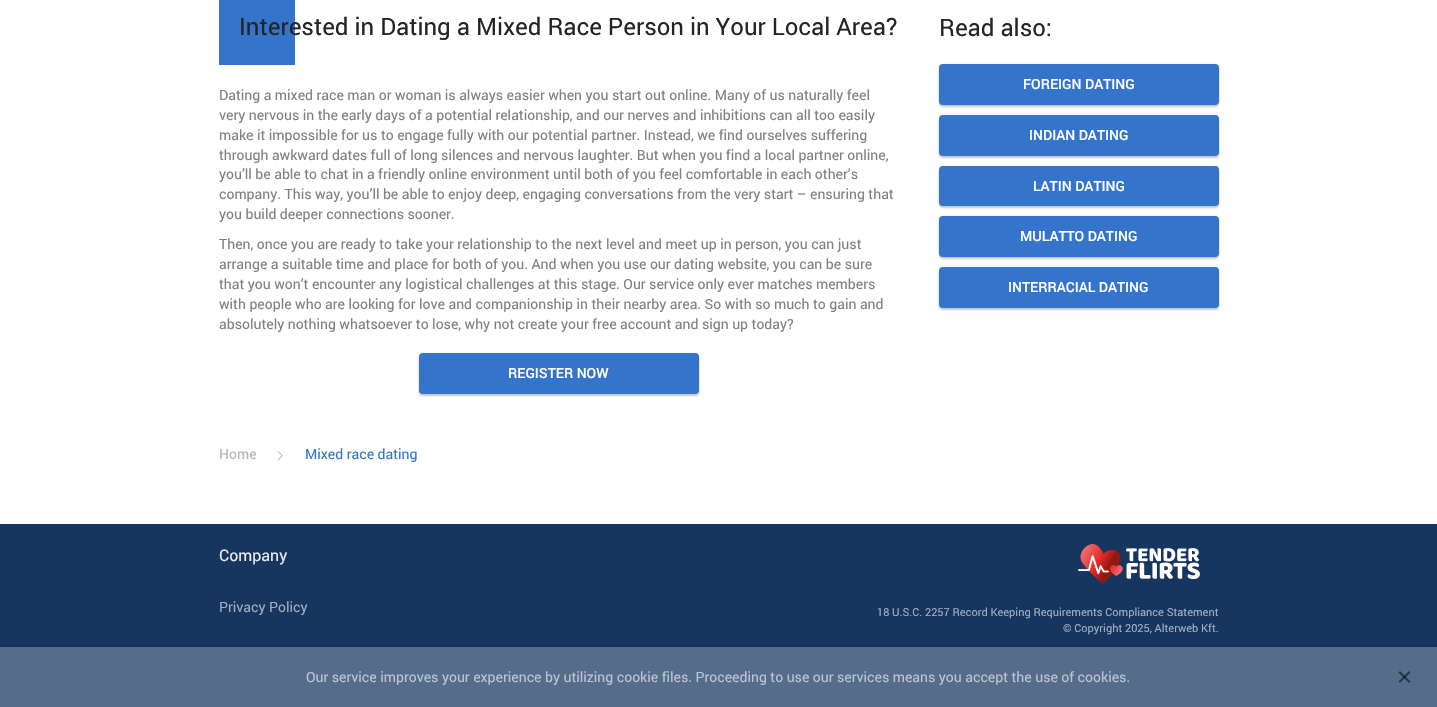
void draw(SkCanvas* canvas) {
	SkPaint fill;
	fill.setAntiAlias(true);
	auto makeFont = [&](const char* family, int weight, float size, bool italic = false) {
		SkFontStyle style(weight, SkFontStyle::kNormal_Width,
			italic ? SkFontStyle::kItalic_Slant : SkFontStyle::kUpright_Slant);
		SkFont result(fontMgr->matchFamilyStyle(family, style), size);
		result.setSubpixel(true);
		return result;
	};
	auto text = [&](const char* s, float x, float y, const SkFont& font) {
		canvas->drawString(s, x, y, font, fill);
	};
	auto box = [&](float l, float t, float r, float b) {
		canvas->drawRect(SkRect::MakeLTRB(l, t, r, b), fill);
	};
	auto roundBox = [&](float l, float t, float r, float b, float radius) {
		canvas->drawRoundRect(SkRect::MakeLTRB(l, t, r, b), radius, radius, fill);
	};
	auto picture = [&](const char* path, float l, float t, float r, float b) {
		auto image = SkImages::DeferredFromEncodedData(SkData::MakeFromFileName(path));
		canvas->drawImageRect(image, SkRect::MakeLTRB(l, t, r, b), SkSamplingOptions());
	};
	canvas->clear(0xFFFFFFFF);
	fill.setColor(0xFF3474CB);
	box(219, 0, 295, 65);
	fill.setColor(0x1A000000);
	fill.setMaskFilter(SkMaskFilter::MakeBlur(kNormal_SkBlurStyle, 1));
	canvas->drawRoundRect(SkRect::MakeLTRB(419, 353, 699, 394), 4, 4, fill);
	fill.setMaskFilter(nullptr);
	fill.setColor(0x33000000);
	fill.setMaskFilter(SkMaskFilter::MakeBlur(kNormal_SkBlurStyle, 1));
	canvas->drawRoundRect(SkRect::MakeLTRB(419, 355, 699, 396), 4, 4, fill);
	fill.setMaskFilter(nullptr);
	fill.setColor(0xFF3474CB);
	roundBox(419, 353, 699, 394, 4);
	fill.setColor(0x1A000000);
	fill.setMaskFilter(SkMaskFilter::MakeBlur(kNormal_SkBlurStyle, 1));
	canvas->drawRoundRect(SkRect::MakeLTRB(939, 64, 1219, 105), 4, 4, fill);
	fill.setMaskFilter(nullptr);
	fill.setColor(0x33000000);
	fill.setMaskFilter(SkMaskFilter::MakeBlur(kNormal_SkBlurStyle, 1));
	canvas->drawRoundRect(SkRect::MakeLTRB(939, 66, 1219, 107), 4, 4, fill);
	fill.setMaskFilter(nullptr);
	fill.setColor(0xFF3474CB);
	roundBox(939, 64, 1219, 105, 4);
	fill.setColor(0x1A000000);
	fill.setMaskFilter(SkMaskFilter::MakeBlur(kNormal_SkBlurStyle, 1));
	canvas->drawRoundRect(SkRect::MakeLTRB(939, 115, 1219, 156), 4, 4, fill);
	fill.setMaskFilter(nullptr);
	fill.setColor(0x33000000);
	fill.setMaskFilter(SkMaskFilter::MakeBlur(kNormal_SkBlurStyle, 1));
	canvas->drawRoundRect(SkRect::MakeLTRB(939, 117, 1219, 158), 4, 4, fill);
	fill.setMaskFilter(nullptr);
	fill.setColor(0xFF3474CB);
	roundBox(939, 115, 1219, 156, 4);
	fill.setColor(0x1A000000);
	fill.setMaskFilter(SkMaskFilter::MakeBlur(kNormal_SkBlurStyle, 1));
	canvas->drawRoundRect(SkRect::MakeLTRB(939, 166, 1219, 206), 4, 4, fill);
	fill.setMaskFilter(nullptr);
	fill.setColor(0x33000000);
	fill.setMaskFilter(SkMaskFilter::MakeBlur(kNormal_SkBlurStyle, 1));
	canvas->drawRoundRect(SkRect::MakeLTRB(939, 168, 1219, 208), 4, 4, fill);
	fill.setMaskFilter(nullptr);
	fill.setColor(0xFF3474CB);
	roundBox(939, 166, 1219, 206, 4);
	fill.setColor(0x1A000000);
	fill.setMaskFilter(SkMaskFilter::MakeBlur(kNormal_SkBlurStyle, 1));
	canvas->drawRoundRect(SkRect::MakeLTRB(939, 216, 1219, 257), 4, 4, fill);
	fill.setMaskFilter(nullptr);
	fill.setColor(0x33000000);
	fill.setMaskFilter(SkMaskFilter::MakeBlur(kNormal_SkBlurStyle, 1));
	canvas->drawRoundRect(SkRect::MakeLTRB(939, 218, 1219, 259), 4, 4, fill);
	fill.setMaskFilter(nullptr);
	fill.setColor(0xFF3474CB);
	roundBox(939, 216, 1219, 257, 4);
	fill.setColor(0x1A000000);
	fill.setMaskFilter(SkMaskFilter::MakeBlur(kNormal_SkBlurStyle, 1));
	canvas->drawRoundRect(SkRect::MakeLTRB(939, 267, 1219, 308), 4, 4, fill);
	fill.setMaskFilter(nullptr);
	fill.setColor(0x33000000);
	fill.setMaskFilter(SkMaskFilter::MakeBlur(kNormal_SkBlurStyle, 1));
	canvas->drawRoundRect(SkRect::MakeLTRB(939, 269, 1219, 310), 4, 4, fill);
	fill.setMaskFilter(nullptr);
	fill.setColor(0xFF3474CB);
	roundBox(939, 267, 1219, 308, 4);
	fill.setColor(0xFFB3B3B3);
	canvas->drawPath(SkPathBuilder().moveTo(278, 451).lineTo(283, 455.5f).lineTo(281.5f, 455.5f).lineTo(277.5f, 451.5f).close().detach(), fill);
	canvas->drawPath(SkPathBuilder().moveTo(283, 455.5f).lineTo(278, 460.5f).lineTo(277.5f, 460).lineTo(281.5f, 455.5f).close().detach(), fill);
	fill.setColor(0xFF16355F);
	box(0, 524, 1437, 647);
	picture("image0.png", 1078, 544, 1200, 584);
	fill.setColor(0x1A000000);
	fill.setMaskFilter(SkMaskFilter::MakeBlur(kNormal_SkBlurStyle, 2));
	canvas->drawRect(SkRect::MakeLTRB(0, 647, 1437, 707), fill);
	fill.setMaskFilter(nullptr);
	fill.setColor(0xFF556C8B);
	box(0, 647, 1437, 707);
	fill.setColor(0xFF2B3646);
	canvas->drawPath(SkPathBuilder().moveTo(1398.5f, 681.5f).lineTo(1409, 671).lineTo(1410.5f, 672.5f).lineTo(1400, 683).close().detach(), fill);
	fill.setColor(0x80000000);
	canvas->drawPath(SkPathBuilder().moveTo(1400, 671).lineTo(1410.5f, 681.5f).lineTo(1409, 683).lineTo(1398.5f, 672.5f).close().detach(), fill);
	auto font1 = makeFont("Roboto", 400, 24);
	fill.setColor(0xFF232426);
	text("Interested in Dating a Mixed Race Person in Your Local Area?", 239, 35, font1);
	auto font2 = makeFont("Roboto", 400, 14);
	fill.setColor(0xFF808080);
	text("Dating a mixed race man or woman is always easier when you start out online. Many of us naturally feel", 219, 100, font2);
	text("very nervous in the early days of a potential relationship, and our nerves and inhibitions can all too easily", 219, 120, font2);
	text("make it impossible for us to engage fully with our potential partner. Instead, we find ourselves suffering", 219, 140, font2);
	text("through awkward dates full of long silences and nervous laughter. But when you find a local partner online,", 219, 160, font2);
	text("you’ll be able to chat in a friendly online environment until both of you feel comfortable in each other’s", 219, 179, font2);
	text("company. This way, you’ll be able to enjoy deep, engaging conversations from the very start – ensuring that", 219, 199, font2);
	text("you build deeper connections sooner.", 219, 219, font2);
	text("Then, once you are ready to take your relationship to the next level and meet up in person, you can just", 219, 249, font2);
	text("arrange a suitable time and place for both of you. And when you use our dating website, you can be sure", 219, 269, font2);
	text("that you won’t encounter any logistical challenges at this stage. Our service only ever matches members", 219, 289, font2);
	text("with people who are looking for love and companionship in their nearby area. So with so much to gain and", 219, 309, font2);
	text("absolutely nothing whatsoever to lose, why not create your free account and sign up today?", 219, 329, font2);
	auto font3 = makeFont("Roboto", 500, 14);
	fill.setColor(0xFFFFFFFF);
	text("REGISTER NOW", 508, 378, font3);
	fill.setColor(0xFF232426);
	text("Read also:", 939, 36, font1);
	fill.setColor(0xFFFFFFFF);
	text("FOREIGN DATING", 1023, 89, font3);
	text("INDIAN DATING", 1029, 140, font3);
	text("LATIN DATING", 1033, 191, font3);
	text("MULATTO DATING", 1020, 241, font3);
	text("INTERRACIAL DATING", 1008, 292, font3);
	fill.setColor(0xFFB3B3B3);
	text("Home", 219, 459, font2);
	fill.setColor(0xFF3474CB);
	text("Mixed race dating", 305, 459, font2);
	auto font4 = makeFont("Roboto", 400, 16);
	fill.setColor(0xFFE8EBEF);
	text("Company", 219, 561, font4);
	fill.setColor(0xFFA2AEBF);
	text("Privacy Policy", 219, 612, font2);
	auto font5 = makeFont("Roboto", 400, 11);
	text("18 U.S.C. 2257 Record Keeping Requirements Compliance Statement", 877, 616, font5);
	text("© Copyright 2025, Alterweb Kft.", 1063, 632, font5);
	fill.setColor(0xFFBBC4D1);
	text("Our service improves your experience by utilizing cookie files. Proceeding to use our services means you accept the use of cookies.", 306, 682, font2);
}
